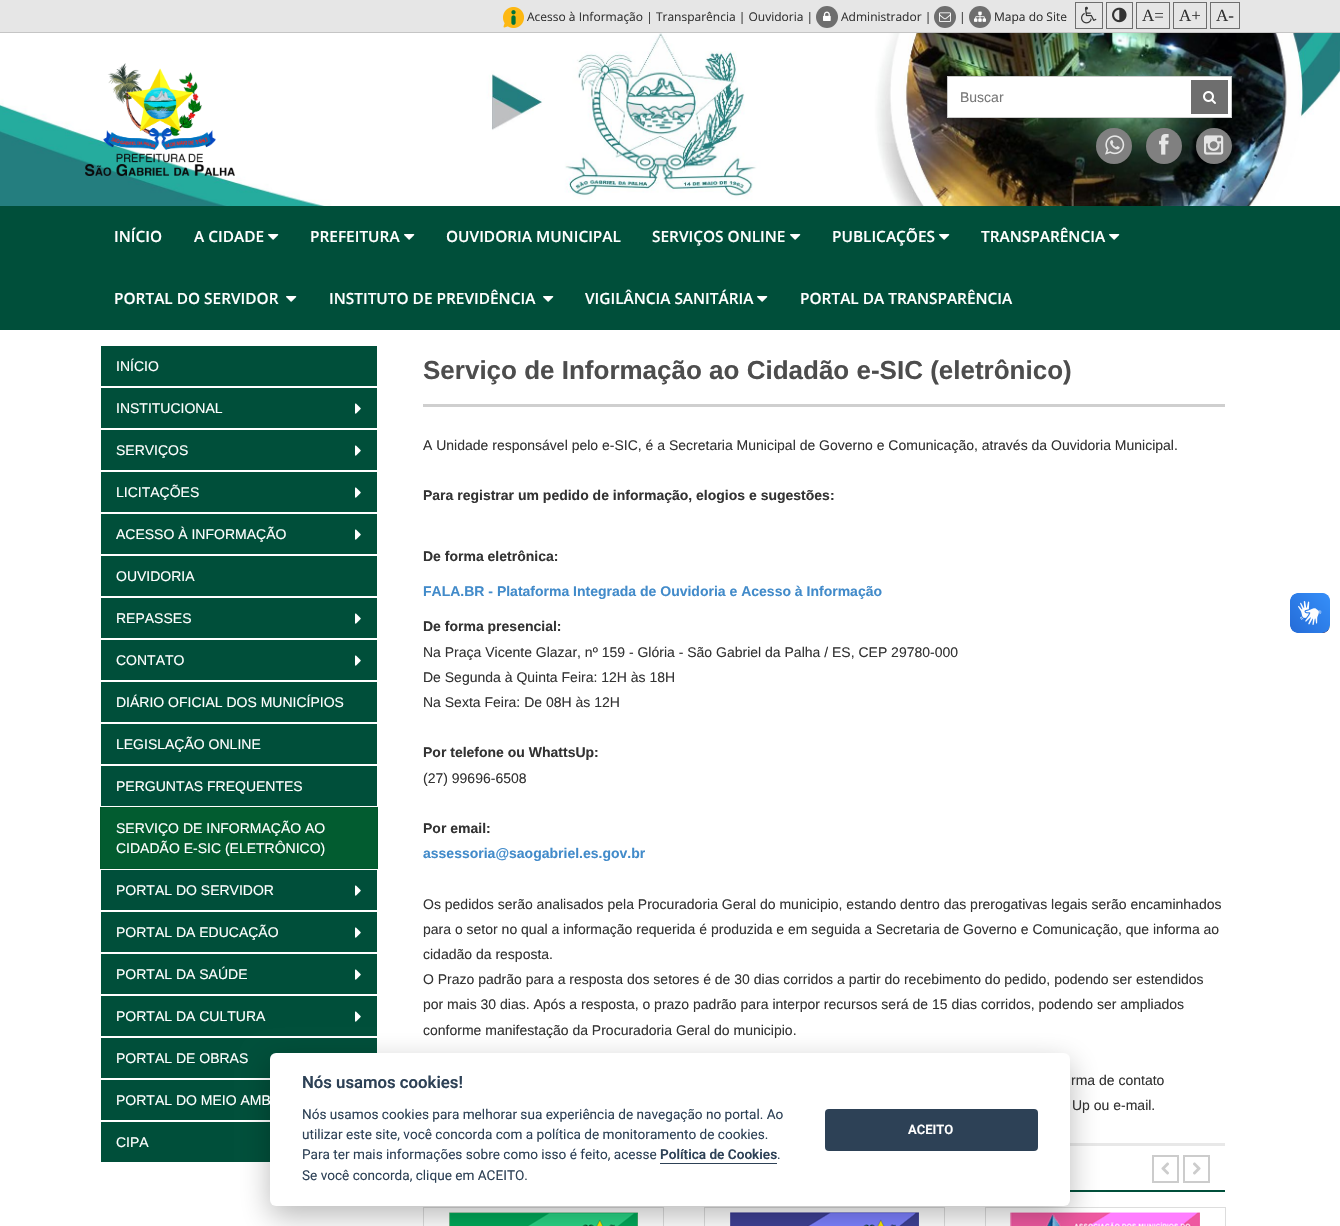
void draw(SkCanvas* canvas) {
	SkPaint fill;
	fill.setAntiAlias(true);
	auto makeFont = [&](const char* family, int weight, float size, bool italic = false) {
		SkFontStyle style(weight, SkFontStyle::kNormal_Width,
			italic ? SkFontStyle::kItalic_Slant : SkFontStyle::kUpright_Slant);
		SkFont result(fontMgr->matchFamilyStyle(family, style), size);
		result.setSubpixel(true);
		return result;
	};
	auto text = [&](const char* s, float x, float y, const SkFont& font) {
		canvas->drawString(s, x, y, font, fill);
	};
	auto box = [&](float l, float t, float r, float b) {
		canvas->drawRect(SkRect::MakeLTRB(l, t, r, b), fill);
	};
	auto roundBox = [&](float l, float t, float r, float b, float radius) {
		canvas->drawRoundRect(SkRect::MakeLTRB(l, t, r, b), radius, radius, fill);
	};
	auto picture = [&](const char* path, float l, float t, float r, float b) {
		auto image = SkImages::DeferredFromEncodedData(SkData::MakeFromFileName(path));
		canvas->drawImageRect(image, SkRect::MakeLTRB(l, t, r, b), SkSamplingOptions());
	};
	canvas->clear(0xFFFFFFFF);
	fill.setColor(0xFFE6E6E6);
	box(0, 0, 1340, 32);
	fill.setColor(0xFFC5C5C5);
	box(0, 32, 1340, 33);
	picture("image0.png", 503, 7, 524, 28);
	fill.setColor(0xFF6E6E6E);
	canvas->drawCircle(827, 17, 11, fill);
	picture("image1.png", 823, 11, 831, 21);
	canvas->drawCircle(945, 17, 11, fill);
	picture("image2.png", 939, 12, 951, 22);
	canvas->drawCircle(980, 17, 11, fill);
	picture("image3.png", 974, 11, 986, 22);
	fill.setStyle(SkPaint::kStroke_Style);
	fill.setStrokeWidth(1);
	canvas->drawRect(SkRect::MakeLTRB(1075.5f, 2.5f, 1102.5f, 28.5f), fill);
	picture("image4.png", 1081, 6, 1097, 24);
	canvas->drawRect(SkRect::MakeLTRB(1106.5f, 2.5f, 1132.5f, 28.5f), fill);
	picture("image5.png", 1112, 7, 1127, 23);
	canvas->drawRect(SkRect::MakeLTRB(1136.5f, 2.5f, 1169.5f, 28.5f), fill);
	canvas->drawRect(SkRect::MakeLTRB(1173.5f, 2.5f, 1206.5f, 28.5f), fill);
	canvas->drawRect(SkRect::MakeLTRB(1210.5f, 2.5f, 1239.5f, 28.5f), fill);
	picture("image6.png", 0, 33, 1340, 206);
	picture("image7.png", 85, 63, 235, 176);
	fill.setColor(0xFFCCCCCC);
	canvas->drawRect(SkRect::MakeLTRB(947.5f, 76.5f, 1231.5f, 117.5f), fill);
	fill.setStyle(SkPaint::kFill_Style);
	fill.setColor(0xFFFFFFFF);
	box(948, 77, 1231, 117);
	fill.setColor(0xFF6E6E6E);
	box(1191, 80, 1228, 114);
	picture("image8.png", 1203, 91, 1216, 104);
	fill.setColor(0xFF808080);
	canvas->drawCircle(1114, 146, 18, fill);
	picture("image9.png", 1105, 135, 1125, 155);
	canvas->drawCircle(1164, 146, 18, fill);
	picture("image10.png", 1159, 134, 1169, 155);
	canvas->drawCircle(1214, 146, 18, fill);
	picture("image11.png", 1204, 135, 1224, 155);
	fill.setColor(0xFF004F3A);
	box(0, 206, 1340, 330);
	picture("image12.png", 268, 234, 279, 240);
	picture("image12.png", 404, 234, 415, 240);
	picture("image12.png", 790, 234, 801, 240);
	picture("image12.png", 939, 234, 950, 240);
	picture("image12.png", 1109, 234, 1120, 240);
	picture("image12.png", 286, 296, 297, 302);
	picture("image12.png", 543, 296, 554, 302);
	picture("image12.png", 757, 296, 768, 302);
	box(101, 346, 377, 386);
	box(101, 388, 377, 428);
	picture("image13.png", 355, 403, 361, 414);
	box(101, 430, 377, 470);
	picture("image13.png", 355, 445, 361, 456);
	box(101, 472, 377, 512);
	picture("image13.png", 355, 487, 361, 498);
	box(101, 514, 377, 554);
	picture("image13.png", 355, 529, 361, 540);
	box(101, 556, 377, 596);
	box(101, 598, 377, 638);
	picture("image13.png", 355, 613, 361, 624);
	box(101, 640, 377, 680);
	picture("image13.png", 355, 655, 361, 666);
	box(101, 682, 377, 722);
	box(101, 724, 377, 764);
	box(101, 766, 377, 806);
	fill.setColor(0xFF025C30);
	canvas->drawRect(SkRect::MakeLTRB(100.5f, 807.5f, 377.5f, 868.5f), fill);
	fill.setStyle(SkPaint::kStroke_Style);
	fill.setColor(0xFF02572B);
	canvas->drawRect(SkRect::MakeLTRB(100.5f, 807.5f, 377.5f, 868.5f), fill);
	fill.setStyle(SkPaint::kFill_Style);
	fill.setColor(0xFF004F3A);
	box(101, 870, 377, 910);
	picture("image13.png", 355, 885, 361, 896);
	box(101, 912, 377, 952);
	picture("image13.png", 355, 927, 361, 938);
	box(101, 954, 377, 994);
	picture("image13.png", 355, 969, 361, 980);
	box(101, 996, 377, 1036);
	picture("image13.png", 355, 1011, 361, 1022);
	box(101, 1038, 377, 1078);
	box(101, 1080, 270, 1120);
	box(101, 1122, 270, 1162);
	fill.setColor(0xFFCFCFCF);
	box(423, 404, 1225, 407);
	fill.setColor(0xFFE8E8E8);
	box(1070, 1143, 1225, 1146);
	fill.setColor(0xFF004F3A);
	box(1070, 1190, 1225, 1192);
	fill.setStyle(SkPaint::kStroke_Style);
	fill.setStrokeWidth(2);
	fill.setColor(0xFFCCCCCC);
	canvas->drawRect(SkRect::MakeLTRB(1153, 1156, 1178, 1182), fill);
	picture("image14.png", 1161, 1162, 1169, 1175);
	canvas->drawRect(SkRect::MakeLTRB(1184, 1156, 1209, 1182), fill);
	picture("image15.png", 1193, 1162, 1201, 1175);
	fill.setStrokeWidth(1);
	fill.setColor(0xFFDDDDDD);
	canvas->drawRect(SkRect::MakeLTRB(423.5f, 1207.5f, 663.5f, 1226.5f), fill);
	picture("image16.png", 449, 1212, 638, 1226);
	canvas->drawRect(SkRect::MakeLTRB(704.5f, 1207.5f, 944.5f, 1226.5f), fill);
	picture("image17.png", 730, 1212, 919, 1226);
	canvas->drawRect(SkRect::MakeLTRB(985.5f, 1207.5f, 1225.5f, 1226.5f), fill);
	picture("image18.png", 1010, 1212, 1200, 1226);
	picture("image19.png", 1290, 593, 1330, 633);
	picture("image20.png", 1290, 593, 1330, 633);
	fill.setStyle(SkPaint::kFill_Style);
	fill.setColor(0x47020203);
	fill.setMaskFilter(SkMaskFilter::MakeBlur(kNormal_SkBlurStyle, 15));
	canvas->drawRoundRect(SkRect::MakeLTRB(270, 1063, 1070, 1216), 6, 6, fill);
	fill.setMaskFilter(nullptr);
	fill.setColor(0xFFFFFFFF);
	roundBox(270, 1053, 1070, 1206, 6);
	fill.setColor(0xFF2D4156);
	box(660, 1163, 777, 1164);
	roundBox(825, 1109, 1038, 1151, 4);
	auto font1 = makeFont("Open Sans", 400, 12);
	fill.setColor(0xFF333333);
	text("Acesso à Informação | Transparência | Ouvidoria |", 527, 21, font1);
	text("Administrador |", 841, 21, font1);
	text("|", 959, 21, font1);
	text("Mapa do Site", 994, 21, font1);
	auto font2 = makeFont("Liberation Serif", 400, 17);
	text("A=", 1142, 21, font2);
	text("A+", 1179, 21, font2);
	text("A-", 1216, 21, font2);
	auto font3 = makeFont("Liberation Sans", 400, 14);
	fill.setColor(0xFF777777);
	text("Buscar", 960, 102, font3);
	auto font4 = makeFont("Open Sans", 600, 15.4f);
	fill.setColor(0xFFFFFFFF);
	text("INÍCIO", 114, 242, font4);
	text("A CIDADE", 194, 242, font4);
	text("PREFEITURA", 310, 242, font4);
	text("OUVIDORIA MUNICIPAL", 446, 242, font4);
	text("SERVIÇOS ONLINE", 652, 242, font4);
	text("PUBLICAÇÕES", 832, 242, font4);
	text("TRANSPARÊNCIA", 981, 242, font4);
	text("PORTAL DO SERVIDOR", 114, 304, font4);
	text("INSTITUTO DE PREVIDÊNCIA", 329, 304, font4);
	text("VIGILÂNCIA SANITÁRIA", 585, 304, font4);
	text("PORTAL DA TRANSPARÊNCIA", 800, 304, font4);
	text("INÍCIO", 116, 371, font3);
	text("INSTITUCIONAL", 116, 413, font3);
	text("SERVIÇOS", 116, 455, font3);
	text("LICITAÇÕES", 116, 497, font3);
	text("ACESSO À INFORMAÇÃO", 116, 539, font3);
	text("OUVIDORIA", 116, 581, font3);
	text("REPASSES", 116, 623, font3);
	text("CONTATO", 116, 665, font3);
	text("DIÁRIO OFICIAL DOS MUNICÍPIOS", 116, 707, font3);
	text("LEGISLAÇÃO ONLINE", 116, 749, font3);
	text("PERGUNTAS FREQUENTES", 116, 791, font3);
	text("SERVIÇO DE INFORMAÇÃO AO", 116, 833, font3);
	text("CIDADÃO E-SIC (ELETRÔNICO)", 116, 853, font3);
	text("PORTAL DO SERVIDOR", 116, 895, font3);
	text("PORTAL DA EDUCAÇÃO", 116, 937, font3);
	text("PORTAL DA SAÚDE", 116, 979, font3);
	text("PORTAL DA CULTURA", 116, 1021, font3);
	text("PORTAL DE OBRAS", 116, 1063, font3);
	text("PORTAL DO MEIO AMB", 116, 1105, font3);
	text("CIPA", 116, 1147, font3);
	auto font5 = makeFont("Liberation Sans", 700, 26);
	fill.setColor(0xFF4D4D4D);
	text("Serviço de Informação ao Cidadão e-SIC (eletrônico)", 423, 379, font5);
	fill.setColor(0xFF333333);
	text("A Unidade responsável pelo e-SIC, é a Secretaria Municipal de Governo e Comunicação, através da Ouvidoria Municipal.", 423, 450, font3);
	auto font6 = makeFont("Liberation Sans", 700, 14);
	text("Para registrar um pedido de informação, elogios e sugestões:", 423, 500, font6);
	text("De forma eletrônica:", 423, 561, font6);
	fill.setColor(0xFF428BCA);
	text("FALA.BR - Plataforma Integrada de Ouvidoria e Acesso à Informação", 423, 596, font6);
	fill.setColor(0xFF333333);
	text("De forma presencial:", 423, 631, font6);
	text("Na Praça Vicente Glazar, nº 159 - Glória - São Gabriel da Palha / ES, CEP 29780-000", 423, 657, font3);
	text("De Segunda à Quinta Feira: 12H às 18H", 423, 682, font3);
	text("Na Sexta Feira: De 08H às 12H", 423, 707, font3);
	text("Por telefone ou WhattsUp:", 423, 757, font6);
	text("(27) 99696-6508", 423, 783, font3);
	text("Por email:", 423, 833, font6);
	fill.setColor(0xFF428BCA);
	text("assessoria@saogabriel.es.gov.br", 423, 858, font6);
	fill.setColor(0xFF333333);
	text("Os pedidos serão analisados pela Procuradoria Geral do municipio, estando dentro das prerogativas legais serão encaminhados", 423, 909, font3);
	text("para o setor no qual a informação requerida é produzida e em seguida a Secretaria de Governo e Comunicação, que informa ao", 423, 934, font3);
	text("cidadão da resposta.", 423, 959, font3);
	text("O Prazo padrão para a resposta dos setores é de 30 dias corridos a partir do recebimento do pedido, podendo ser estendidos", 423, 984, font3);
	text("por mais 30 dias. Após a resposta, o prazo padrão para interpor recursos será de 15 dias corridos, podendo ser ampliados", 423, 1009, font3);
	text("conforme manifestação da Procuradoria Geral do municipio.", 423, 1035, font3);
	text("rma de contato", 1071, 1085, font3);
	text("Up ou e-mail.", 1072, 1110, font3);
	auto font7 = makeFont("Roboto", 600, 16.75f);
	fill.setColor(0xFF2D4156);
	text("Nós usamos cookies!", 302, 1088, font7);
	auto font8 = makeFont("Roboto", 400, 13.6f);
	text("Nós usamos cookies para melhorar sua experiência de navegação no portal. Ao", 302, 1119, font8);
	text("utilizar este site, você concorda com a política de monitoramento de cookies.", 302, 1139, font8);
	text("Para ter mais informações sobre como isso é feito, acesse", 302, 1159, font8);
	auto font9 = makeFont("Roboto", 600, 13.6f);
	text("Política de Cookies", 660, 1159, font9);
	text(".", 777, 1159, font8);
	text("Se você concorda, clique em ACEITO.", 302, 1180, font8);
	auto font10 = makeFont("Roboto", 600, 13);
	fill.setColor(0xFFFFFFFF);
	text("ACEITO", 908, 1134, font10);
}
